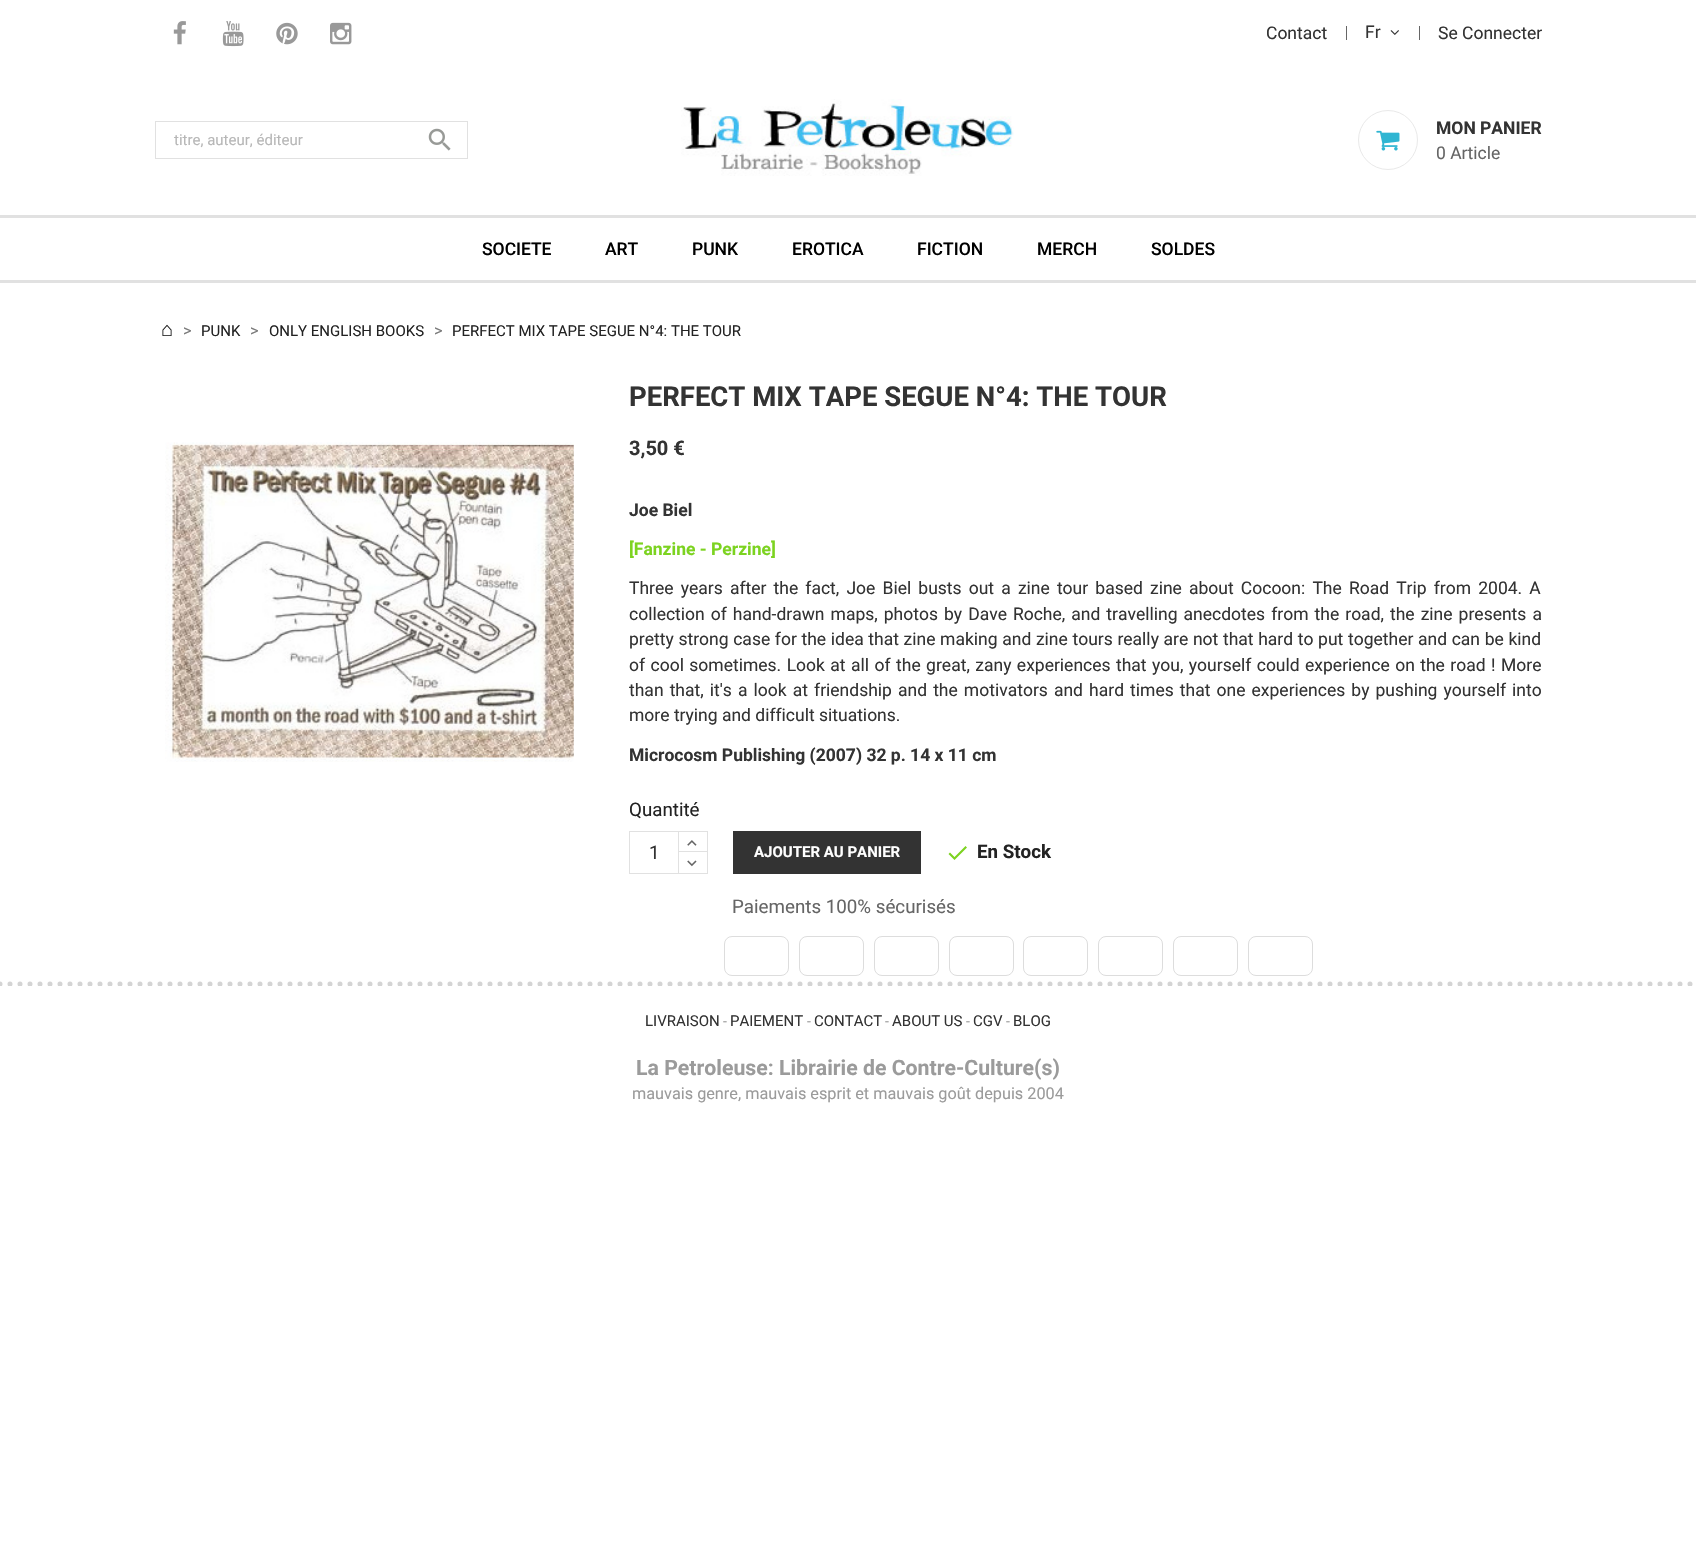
void draw(SkCanvas* canvas) {
	SkPaint fill;
	fill.setAntiAlias(true);
	auto makeFont = [&](const char* family, int weight, float size, bool italic = false) {
		SkFontStyle style(weight, SkFontStyle::kNormal_Width,
			italic ? SkFontStyle::kItalic_Slant : SkFontStyle::kUpright_Slant);
		SkFont result(fontMgr->matchFamilyStyle(family, style), size);
		result.setSubpixel(true);
		return result;
	};
	auto text = [&](const char* s, float x, float y, const SkFont& font) {
		canvas->drawString(s, x, y, font, fill);
	};
	auto spacedText = [&](const char* s, float x, float y, const SkFont& font, const SkPaint& ink, float letter, float word) {
		std::vector<SkGlyphID> glyphs(font.countText(s, strlen(s), SkTextEncoding::kUTF8));
		std::vector<float> xs(glyphs.size());
		font.textToGlyphs(s, strlen(s), SkTextEncoding::kUTF8, glyphs);
		font.getXPos(glyphs, xs, x);
		float extra = 0;
		for (size_t i = 0; i < glyphs.size(); i++) {
			xs[i] += extra;
			extra += letter + word * (glyphs[i] == font.unicharToGlyph(' '));
		}
		canvas->drawTextBlob(SkTextBlob::MakeFromPosHGlyphs(glyphs, xs, y, font), 0, 0, ink);
	};
	auto box = [&](float l, float t, float r, float b) {
		canvas->drawRect(SkRect::MakeLTRB(l, t, r, b), fill);
	};
	auto picture = [&](const char* path, float l, float t, float r, float b) {
		auto image = SkImages::DeferredFromEncodedData(SkData::MakeFromFileName(path));
		canvas->drawImageRect(image, SkRect::MakeLTRB(l, t, r, b), SkSamplingOptions());
	};
	canvas->clear(0xFFFFFFFF);
	picture("image0.png", 173, 21, 186, 45);
	picture("image1.png", 222, 21, 244, 47);
	picture("image2.png", 276, 22, 298, 45);
	picture("image3.png", 330, 22, 352, 45);
	fill.setColor(0xFF666666);
	box(1346, 26, 1347, 40);
	picture("image4.png", 1390, 30, 1399, 35);
	box(1419, 26, 1420, 40);
	fill.setStyle(SkPaint::kStroke_Style);
	fill.setStrokeWidth(1);
	fill.setColor(0xFFE1E1E1);
	canvas->drawRect(SkRect::MakeLTRB(155.5f, 121.5f, 467.5f, 158.5f), fill);
	picture("image5.png", 428, 128, 451, 151);
	picture("image6.png", 681, 99, 1014, 176);
	fill.setColor(0xFFE9E9E9);
	canvas->drawCircle(1388, 140, 29.5f, fill);
	picture("image7.png", 1376, 130, 1400, 151);
	fill.setStyle(SkPaint::kFill_Style);
	fill.setColor(0xFFE1E1E1);
	box(0, 215, 1696, 218);
	box(0, 280, 1696, 283);
	picture("image8.png", 165, 442, 574, 762);
	fill.setStyle(SkPaint::kStroke_Style);
	canvas->drawRect(SkRect::MakeLTRB(678.5f, 831.5f, 707.5f, 853.5f), fill);
	fill.setStyle(SkPaint::kFill_Style);
	fill.setColor(0xFFFFFFFF);
	box(679, 853, 707, 854);
	fill.setStyle(SkPaint::kStroke_Style);
	fill.setColor(0xFFE1E1E1);
	canvas->drawRect(SkRect::MakeLTRB(678.5f, 851.5f, 707.5f, 873.5f), fill);
	canvas->drawRect(SkRect::MakeLTRB(629.5f, 831.5f, 678.5f, 873.5f), fill);
	picture("image9.png", 687, 840, 697, 846);
	picture("image10.png", 687, 860, 697, 867);
	fill.setStyle(SkPaint::kFill_Style);
	fill.setColor(0xFF333333);
	box(733, 831, 921, 874);
	fill.setColor(0xFF7CD320);
	canvas->drawPath(SkPathBuilder().moveTo(954.5f, 857).lineTo(965.5f, 846).lineTo(967, 847.5f).lineTo(954.5f, 860).lineTo(948.5f, 854).lineTo(950, 852.5f).close().detach(), fill);
	fill.setStyle(SkPaint::kStroke_Style);
	fill.setColor(0xFFDDDDDD);
	canvas->drawRoundRect(SkRect::MakeLTRB(724.5f, 936.5f, 788.5f, 975.5f), 7.5f, 7.5f, fill);
	canvas->drawRoundRect(SkRect::MakeLTRB(799.5f, 936.5f, 863.5f, 975.5f), 7.5f, 7.5f, fill);
	canvas->drawRoundRect(SkRect::MakeLTRB(874.5f, 936.5f, 938.5f, 975.5f), 7.5f, 7.5f, fill);
	canvas->drawRoundRect(SkRect::MakeLTRB(949.5f, 936.5f, 1013.5f, 975.5f), 7.5f, 7.5f, fill);
	canvas->drawRoundRect(SkRect::MakeLTRB(1023.5f, 936.5f, 1087.5f, 975.5f), 7.5f, 7.5f, fill);
	canvas->drawRoundRect(SkRect::MakeLTRB(1098.5f, 936.5f, 1162.5f, 975.5f), 7.5f, 7.5f, fill);
	canvas->drawRoundRect(SkRect::MakeLTRB(1173.5f, 936.5f, 1237.5f, 975.5f), 7.5f, 7.5f, fill);
	canvas->drawRoundRect(SkRect::MakeLTRB(1248.5f, 936.5f, 1312.5f, 975.5f), 7.5f, 7.5f, fill);
	fill.setStrokeWidth(5);
	fill.setStrokeCap(SkPaint::kRound_Cap);
	fill.setColor(0xFFD4D4D4);
	fill.setPathEffect(SkDashPathEffect::Make({{0, 10}}, 0));
	canvas->drawPath(SkPathBuilder().moveTo(0, 984).lineTo(1696, 984).detach(), fill);
	fill.setPathEffect(nullptr);
	fill.setStyle(SkPaint::kFill_Style);
	fill.setColor(0xFFFFFFFF);
	box(0, 986, 1692, 987);
	auto font1 = makeFont("Roboto", 400, 17.5f);
	fill.setColor(0xFF333333);
	text("Contact", 1266, 39, font1);
	text("Fr", 1365, 38, font1);
	text("Se Connecter", 1438, 39, font1);
	auto font2 = makeFont("Roboto", 400, 15);
	fill.setColor(0xFFB7B7B7);
	text("titre, auteur, éditeur", 174, 145, font2);
	auto font3 = makeFont("Roboto", 700, 17.5f);
	fill.setColor(0xFF333333);
	text("MON PANIER", 1436, 134, font3);
	fill.setColor(0xFF666666);
	text("0 Article", 1436, 159, font1);
	auto font4 = makeFont("Roboto", 500, 17.5f);
	fill.setColor(0xFF000000);
	text("SOCIETE", 482, 255, font4);
	text("ART", 605, 255, font4);
	text("PUNK", 692, 255, font4);
	text("EROTICA", 792, 255, font4);
	text("FICTION", 917, 255, font4);
	text("MERCH", 1037, 255, font4);
	text("SOLDES", 1151, 255, font4);
	auto font5 = makeFont("Liberation Serif", 400, 20);
	fill.setColor(0xFF232323);
	text("⌂", 161, 336, font5);
	auto font6 = makeFont("Roboto", 400, 16.25f);
	fill.setColor(0xFF7A7A7A);
	text(">", 183, 336, font6);
	fill.setColor(0xFF232323);
	text("PUNK", 201, 336, font2);
	fill.setColor(0xFF7A7A7A);
	text(">", 250, 336, font6);
	fill.setColor(0xFF232323);
	text("ONLY ENGLISH BOOKS", 269, 336, font2);
	fill.setColor(0xFF7A7A7A);
	text(">", 434, 336, font6);
	fill.setColor(0xFF232323);
	text("PERFECT MIX TAPE SEGUE N°4: THE TOUR", 452, 336, font2);
	auto font7 = makeFont("Roboto", 700, 27.5f);
	fill.setColor(0xFF333333);
	text("PERFECT MIX TAPE SEGUE N°4: THE TOUR", 629, 406, font7);
	auto font8 = makeFont("Roboto", 700, 20);
	text("3,50 €", 629, 455, font8);
	text("Joe Biel", 629, 516, font3);
	fill.setColor(0xFF7CD320);
	text("[Fanzine - Perzine]", 629, 555, font3);
	fill.setColor(0xFF333333);
	spacedText("Three years after the fact, Joe Biel busts out a zine tour based zine about Cocoon: The Road Trip from 2004. A", 629, 594, font1, fill, 0, 2.8f);
	spacedText("collection of hand-drawn maps, photos by Dave Roche, and travelling anecdotes from the road, the zine presents a", 629, 620, font1, fill, 0, 1.7f);
	spacedText("pretty strong case for the idea that zine making and zine tours really are not that hard to put together and can be kind", 629, 645, font1, fill, 0, 0.3f);
	spacedText("of cool sometimes. Look at all of the great, zany experiences that you, yourself could experience on the road ! More", 629, 671, font1, fill, 0, 1.1f);
	spacedText("than that, it's a look at friendship and the motivators and hard times that one experiences by pushing yourself into", 629, 696, font1, fill, 0, 1.75f);
	text("more trying and difficult situations.", 629, 721, font1);
	text("Microcosm Publishing (2007) 32 p. 14 x 11 cm", 629, 761, font3);
	auto font9 = makeFont("Roboto", 400, 18.75f);
	fill.setColor(0xFF232323);
	text("Quantité", 629, 816, font9);
	fill.setColor(0xFF333333);
	text("1", 649, 859, font9);
	auto font10 = makeFont("Roboto", 700, 15);
	fill.setColor(0xFFFFFFFF);
	text("AJOUTER AU PANIER", 754, 857, font10);
	auto font11 = makeFont("Roboto", 700, 18.75f);
	fill.setColor(0xFF232323);
	text("En Stock", 977, 858, font11);
	fill.setColor(0xFF666666);
	text("Paiements 100% sécurisés", 732, 913, font9);
	fill.setColor(0xFF333333);
	text("LIVRAISON", 645, 1026, font2);
	auto font12 = makeFont("Roboto", 400, 14);
	fill.setColor(0xFF9B9B9B);
	text("-", 723, 1026, font12);
	fill.setColor(0xFF333333);
	text("PAIEMENT", 730, 1026, font2);
	fill.setColor(0xFF9B9B9B);
	text("-", 807, 1026, font12);
	fill.setColor(0xFF333333);
	text("CONTACT", 814, 1026, font2);
	fill.setColor(0xFF9B9B9B);
	text("-", 885, 1026, font12);
	fill.setColor(0xFF333333);
	text("ABOUT US", 892, 1026, font2);
	fill.setColor(0xFF9B9B9B);
	text("-", 966, 1026, font12);
	fill.setColor(0xFF333333);
	text("CGV", 973, 1026, font2);
	fill.setColor(0xFF9B9B9B);
	text("-", 1006, 1026, font12);
	fill.setColor(0xFF333333);
	text("BLOG", 1013, 1026, font2);
	auto font13 = makeFont("Roboto", 700, 21.25f);
	fill.setColor(0xFF9B9B9B);
	text("La Petroleuse: Librairie de Contre-Culture(s)", 636, 1075, font13);
	text("mauvais genre, mauvais esprit et mauvais goût depuis 2004", 632, 1099, font6);
}
